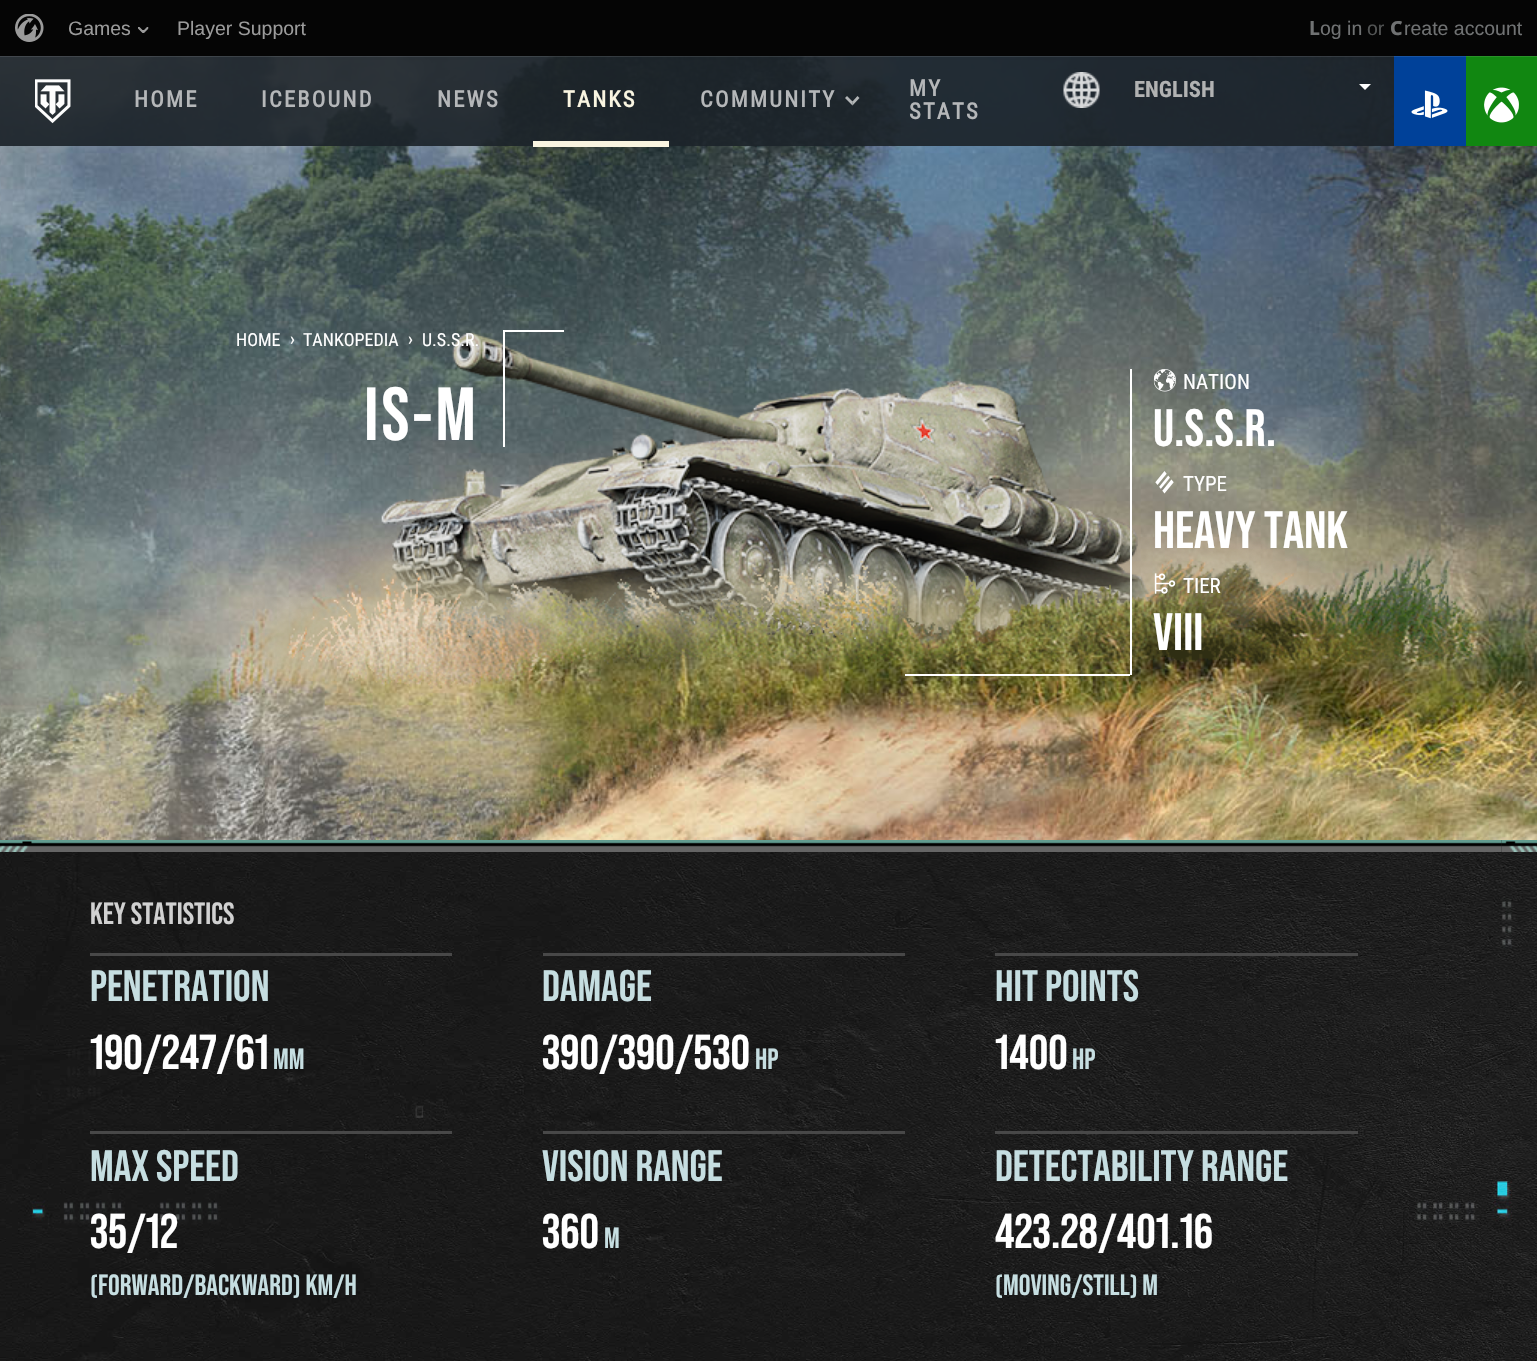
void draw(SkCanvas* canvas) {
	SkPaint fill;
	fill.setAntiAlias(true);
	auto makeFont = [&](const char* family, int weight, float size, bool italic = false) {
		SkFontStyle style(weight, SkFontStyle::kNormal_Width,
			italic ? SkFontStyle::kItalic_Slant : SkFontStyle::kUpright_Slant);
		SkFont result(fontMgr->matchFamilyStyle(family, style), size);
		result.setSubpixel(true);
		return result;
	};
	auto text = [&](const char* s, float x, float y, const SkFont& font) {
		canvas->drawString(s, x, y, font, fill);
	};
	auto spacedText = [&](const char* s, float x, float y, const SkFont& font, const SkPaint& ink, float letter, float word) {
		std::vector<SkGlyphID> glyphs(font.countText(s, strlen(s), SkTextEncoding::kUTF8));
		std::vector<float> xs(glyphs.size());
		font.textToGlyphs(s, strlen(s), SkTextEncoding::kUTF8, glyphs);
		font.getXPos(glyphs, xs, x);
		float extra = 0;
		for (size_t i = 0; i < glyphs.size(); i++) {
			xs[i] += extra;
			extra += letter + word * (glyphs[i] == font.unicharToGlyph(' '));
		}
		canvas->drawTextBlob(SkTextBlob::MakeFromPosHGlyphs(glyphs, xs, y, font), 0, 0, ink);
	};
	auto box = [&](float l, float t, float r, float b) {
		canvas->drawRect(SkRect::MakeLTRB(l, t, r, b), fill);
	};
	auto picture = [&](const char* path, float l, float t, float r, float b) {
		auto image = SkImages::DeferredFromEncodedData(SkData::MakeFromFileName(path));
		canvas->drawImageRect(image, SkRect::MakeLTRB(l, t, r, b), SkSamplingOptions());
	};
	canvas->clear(0xFFFFFFFF);
	picture("image7.png", 0, 56, 1537, 840);
	fill.setColor(0xEB1B2329);
	box(0, 56, 1394, 146);
	fill.setColor(0xFF004199);
	box(1394, 56, 1466, 146);
	fill.setColor(0xFF118711);
	box(1466, 56, 1537, 146);
	fill.setStyle(SkPaint::kStroke_Style);
	fill.setStrokeWidth(2);
	fill.setColor(0x1AFFFFFF);
	canvas->drawRect(SkRect::MakeLTRB(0, 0, 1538, 56), fill);
	fill.setStyle(SkPaint::kFill_Style);
	fill.setColor(0xFF050505);
	box(0, 0, 1537, 56);
	picture("image0.png", 15, 14, 44, 42);
	picture("image1.png", 138, 27, 149, 33);
	picture("image2.png", 1411, 90, 1448, 119);
	picture("image3.png", 1484, 87, 1519, 123);
	picture("image4.png", 35, 79, 71, 124);
	fill.setColor(0xFFF9F5E1);
	box(533, 141, 669, 147);
	fill.setColor(0xFFB2B5B6);
	canvas->drawPath(SkPathBuilder().moveTo(859.5f, 98).lineTo(852.5f, 105.5f).lineTo(852.5f, 101.5f).lineTo(857.5f, 96).close().detach(), fill);
	fill.setColor(0xB3F2F2F2);
	canvas->drawPath(SkPathBuilder().moveTo(852.5f, 105.5f).lineTo(845, 98).lineTo(847, 96).lineTo(852.5f, 101.5f).close().detach(), fill);
	picture("image5.png", 1063, 72, 1100, 108);
	fill.setColor(0xFFFFFFFF);
	canvas->drawPath(SkPathBuilder().moveTo(1359, 84).lineTo(1371, 84).lineTo(1365, 90).close().detach(), fill);
	picture("image6.png", 0, 840, 1537, 1361);
	picture("image8.png", 381, 332, 1150, 640);
	box(503, 330, 505, 447);
	box(504, 330, 564, 332);
	picture("image12.png", 240, 534, 1468, 687);
	picture("image13.png", 287, 555, 1479, 690);
	box(905, 674, 1130, 676);
	box(1130, 369, 1132, 675);
	picture("image9.png", 1154, 369, 1176, 392);
	picture("image10.png", 1155, 471, 1174, 494);
	picture("image11.png", 1154, 573, 1176, 594);
	picture("image14.png", 0, 840, 36, 852);
	picture("image15.png", 36, 840, 1502, 852);
	picture("image16.png", 1501, 840, 1537, 852);
	fill.setColor(0xFF484848);
	box(90, 953, 452, 956);
	box(543, 953, 905, 956);
	box(995, 953, 1358, 956);
	box(90, 1131, 452, 1134);
	box(543, 1131, 905, 1134);
	box(995, 1131, 1358, 1134);
	auto font1 = makeFont("Liberation Sans", 400, 19.5f);
	fill.setColor(0xFF9B9B9B);
	text("Games", 68, 35, font1);
	text("Player Support", 177, 35, font1);
	auto font2 = makeFont("Noto Sans", 700, 19.5f);
	fill.setColor(0xFF707273);
	text("L", 1309, 35, font2);
	text("og in", 1320, 35, font1);
	fill.setColor(0xFF525454);
	text("or", 1367, 35, font1);
	auto font3 = makeFont("Noto Sans", 800, 19.5f);
	fill.setColor(0xFF707273);
	text("C", 1390, 35, font3);
	text("reate account", 1404, 35, font1);
	auto font4 = makeFont("Roboto Condensed", 700, 22.5f);
	fill.setColor(0xFFB5B7B9);
	spacedText("HOME", 134, 107, font4, fill, 2.25f, 0);
	spacedText("ICEBOUND", 261, 107, font4, fill, 2.25f, 0);
	spacedText("NEWS", 437, 107, font4, fill, 2.25f, 0);
	fill.setColor(0xFFF9F5E1);
	spacedText("TANKS", 563, 107, font4, fill, 2.25f, 0);
	fill.setColor(0xFFB5B7B9);
	spacedText("COMMUNITY", 700, 107, font4, fill, 2.25f, 0);
	spacedText("MY", 909, 96, font4, fill, 2.25f, 0);
	spacedText("STATS", 909, 119, font4, fill, 2.25f, 0);
	auto font5 = makeFont("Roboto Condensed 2", 700, 22.5f);
	fill.setColor(0xFFB1B2B2);
	text("ENGLISH", 1134, 97, font5);
	auto font6 = makeFont("Roboto Condensed", 400, 18);
	fill.setColor(0xFFFFFFFF);
	text("HOME", 236, 346, font6);
	text("›", 290, 345, font6);
	text("TANKOPEDIA", 303, 346, font6);
	text("›", 408, 345, font6);
	text("U.S.S.R.", 422, 346, font6);
	auto font7 = makeFont("Bebas Neue", 700, 75);
	spacedText("IS-M", 364, 440, font7, fill, 3, 0);
	auto font8 = makeFont("Roboto Condensed", 400, 21);
	text("NATION", 1183, 389, font8);
	auto font9 = makeFont("Bebas Neue", 700, 52.5f);
	text("U.S.S.R.", 1153, 446, font9);
	text("TYPE", 1183, 491, font8);
	text("HEAVY TANK", 1153, 548, font9);
	text("TIER", 1183, 593, font8);
	text("VIII", 1153, 650, font9);
	auto font10 = makeFont("Bebas Neue", 700, 30.75f);
	fill.setColor(0xFFD1D1D1);
	text("KEY STATISTICS", 90, 924, font10);
	auto font11 = makeFont("Bebas Neue", 700, 44);
	fill.setColor(0xFFC6DEE1);
	text("PENETRATION", 90, 1001, font11);
	auto font12 = makeFont("Bebas Neue", 700, 48.75f);
	fill.setColor(0xFFFFFFFF);
	text("190/247/61", 90, 1069, font12);
	auto font13 = makeFont("Bebas Neue", 700, 29.25f);
	fill.setColor(0xFFC6DEE1);
	text("MM", 273, 1069, font13);
	text("DAMAGE", 542, 1001, font11);
	fill.setColor(0xFFFFFFFF);
	text("390/390/530", 542, 1069, font12);
	fill.setColor(0xFFC6DEE1);
	text("HP", 755, 1069, font13);
	text("HIT POINTS", 995, 1001, font11);
	fill.setColor(0xFFFFFFFF);
	text("1400", 995, 1069, font12);
	fill.setColor(0xFFC6DEE1);
	text("HP", 1072, 1069, font13);
	text("MAX SPEED", 90, 1181, font11);
	fill.setColor(0xFFFFFFFF);
	text("35/12", 90, 1248, font12);
	fill.setColor(0xFFC6DEE1);
	text("(FORWARD/BACKWARD) KM/H", 90, 1295, font13);
	text("VISION RANGE", 542, 1181, font11);
	fill.setColor(0xFFFFFFFF);
	text("360", 542, 1248, font12);
	fill.setColor(0xFFC6DEE1);
	text("M", 604, 1248, font13);
	text("DETECTABILITY RANGE", 995, 1181, font11);
	fill.setColor(0xFFFFFFFF);
	text("423.28/401.16", 995, 1248, font12);
	fill.setColor(0xFFC6DEE1);
	text("(MOVING/STILL) M", 995, 1295, font13);
}
